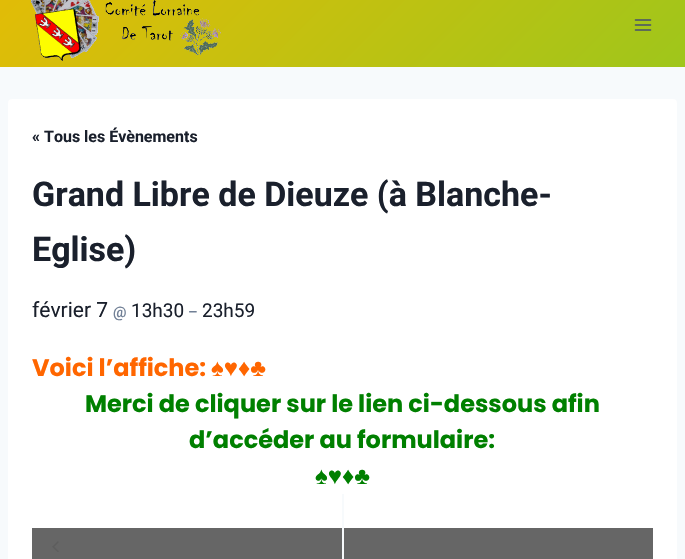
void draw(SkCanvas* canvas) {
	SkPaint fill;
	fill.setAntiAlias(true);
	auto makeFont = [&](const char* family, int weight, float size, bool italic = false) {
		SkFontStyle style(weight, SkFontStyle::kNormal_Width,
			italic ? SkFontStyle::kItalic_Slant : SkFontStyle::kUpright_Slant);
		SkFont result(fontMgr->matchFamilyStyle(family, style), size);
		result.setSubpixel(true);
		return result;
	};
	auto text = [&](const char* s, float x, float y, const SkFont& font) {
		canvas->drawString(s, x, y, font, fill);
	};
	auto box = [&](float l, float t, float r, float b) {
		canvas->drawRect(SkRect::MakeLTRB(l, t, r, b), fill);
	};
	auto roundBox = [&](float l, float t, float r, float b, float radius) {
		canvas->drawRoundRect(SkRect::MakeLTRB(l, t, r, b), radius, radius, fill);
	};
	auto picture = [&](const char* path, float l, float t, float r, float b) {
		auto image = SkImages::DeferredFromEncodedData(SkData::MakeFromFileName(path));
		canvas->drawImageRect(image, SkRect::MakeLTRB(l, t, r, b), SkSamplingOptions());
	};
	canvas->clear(0xFFF7FAFC);
	{
		const SkColor colors[] = {0xFFE3BC06, 0xFF9FC61B};
		const float stops[] = {0, 1};
		const SkPoint ends[] = {{150, -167}, {535, 217}};
		fill.setShader(SkGradientShader::MakeLinear(ends, colors, stops, 2, SkTileMode::kClamp));
		fill.setAlpha(255);
	}
	box(0, 0, 685, 67);
	picture("image0.png", 30, 0, 221, 61);
	picture("image1.png", 634, 19, 652, 31);
	fill.setShader(nullptr);
	fill.setColor(0xFFFFFFFF);
	roundBox(8, 99, 677, 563, 4);
	fill.setColor(0xFFF7FAFC);
	box(342, 494, 344, 559);
	fill.setColor(0xFF666666);
	box(32, 528, 342, 559);
	picture("image2.png", 52, 541, 59, 552);
	box(344, 528, 653, 559);
	auto font1 = makeFont("Roboto", 700, 16);
	fill.setColor(0xFF1A202C);
	text("« Tous les Évènements", 32, 142, font1);
	auto font2 = makeFont("Roboto", 700, 34);
	text("Grand Libre de Dieuze (à Blanche-", 32, 206, font2);
	text("Eglise)", 32, 261, font2);
	auto font3 = makeFont("Roboto", 400, 21);
	text("février 7", 32, 317, font3);
	auto font4 = makeFont("Roboto", 500, 15);
	fill.setColor(0xFF718096);
	text("@", 113, 317, font4);
	auto font5 = makeFont("Roboto", 400, 19);
	fill.setColor(0xFF1A202C);
	text("13h30", 131, 317, font5);
	fill.setColor(0xFF718096);
	text("–", 188, 317, font4);
	fill.setColor(0xFF1A202C);
	text("23h59", 202, 317, font5);
	auto font6 = makeFont("Poppins", 700, 24);
	fill.setColor(0xFFFF6600);
	text("Voici l’affiche:", 32, 376, font6);
	auto font7 = makeFont("Liberation Sans", 700, 24);
	text("♠♥♦♣", 211, 376, font7);
	fill.setColor(0xFF008000);
	text("Merci de cliquer sur le lien ci-dessous afin", 85, 412, font6);
	text("d’accéder au formulaire:", 189, 448, font6);
	text("♠♥♦♣", 315, 484, font7);
}
